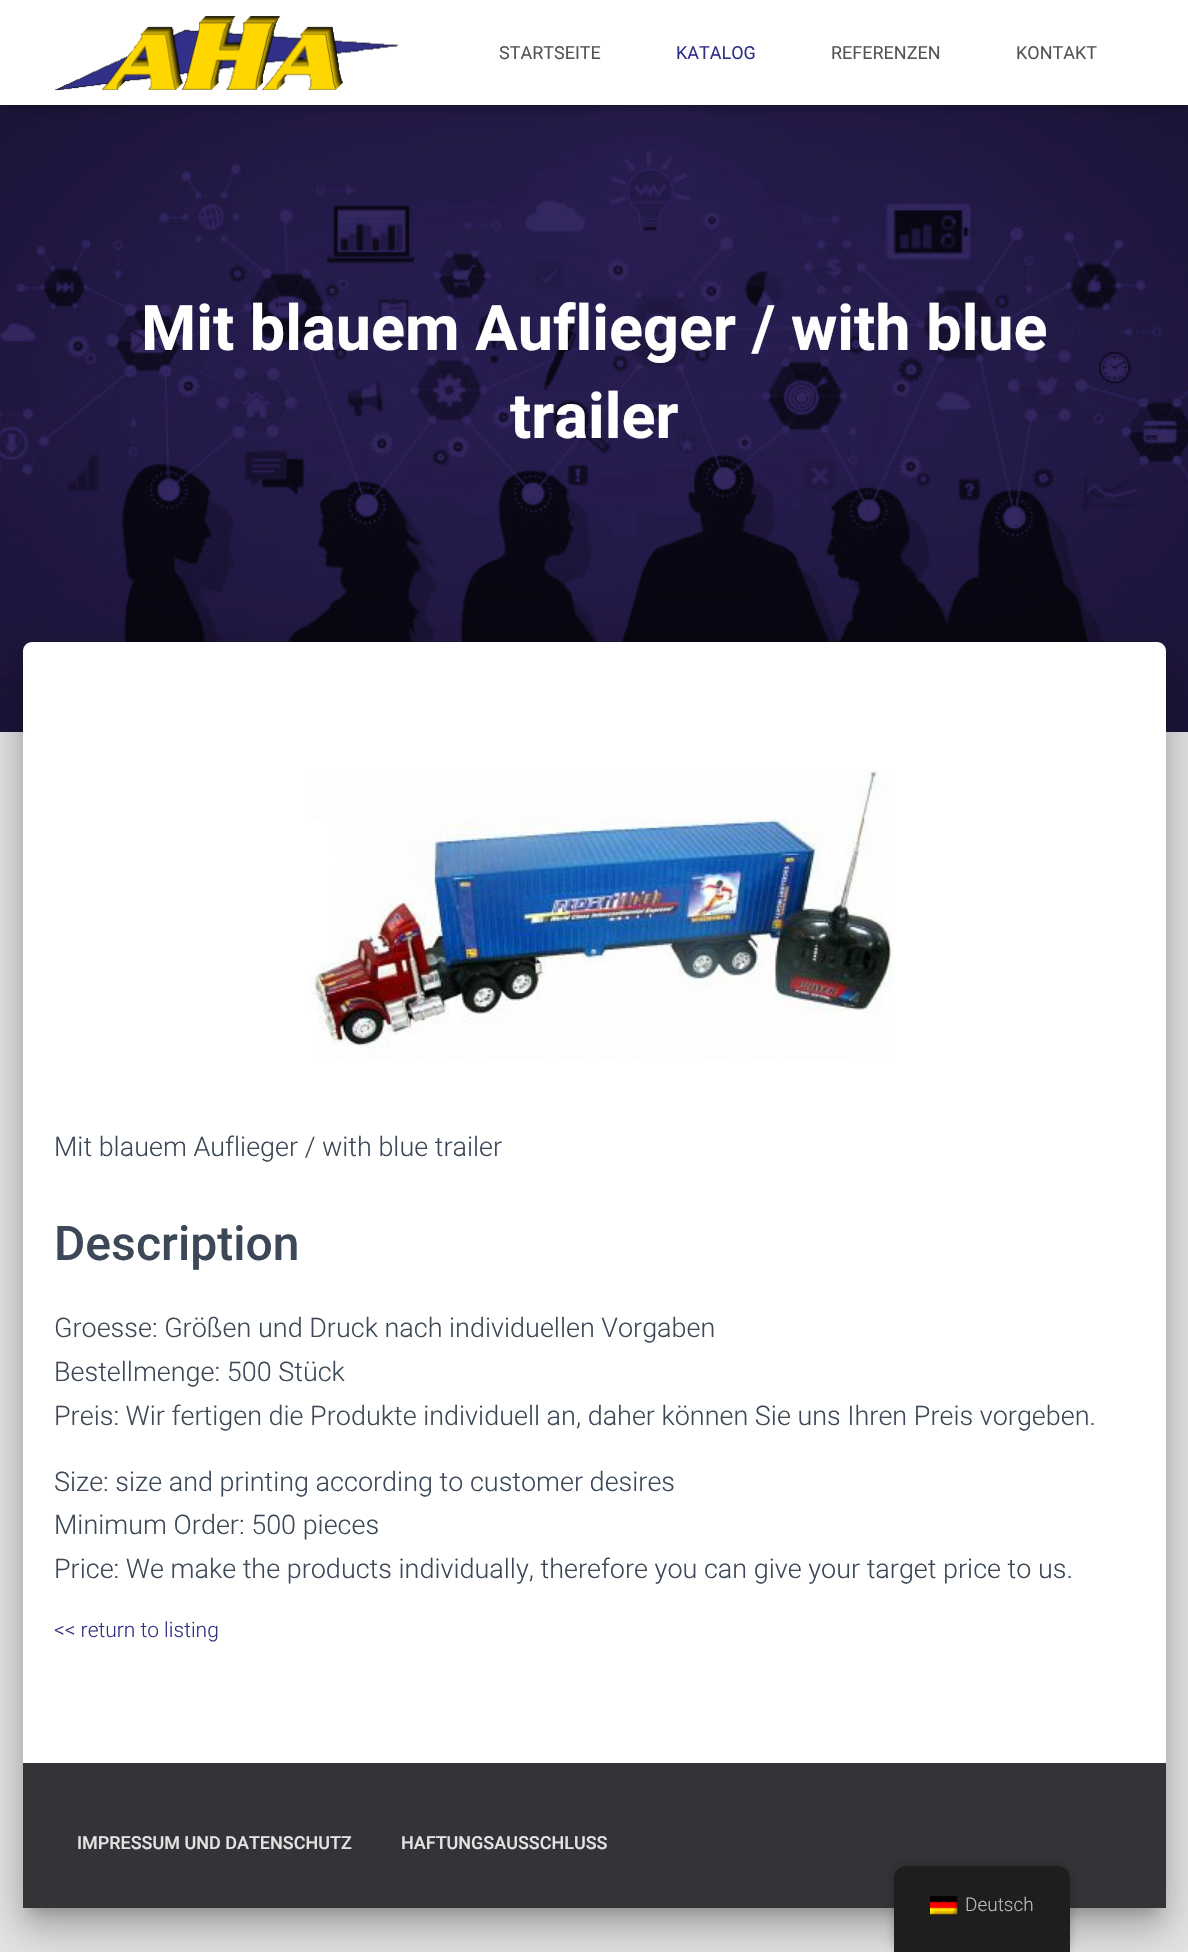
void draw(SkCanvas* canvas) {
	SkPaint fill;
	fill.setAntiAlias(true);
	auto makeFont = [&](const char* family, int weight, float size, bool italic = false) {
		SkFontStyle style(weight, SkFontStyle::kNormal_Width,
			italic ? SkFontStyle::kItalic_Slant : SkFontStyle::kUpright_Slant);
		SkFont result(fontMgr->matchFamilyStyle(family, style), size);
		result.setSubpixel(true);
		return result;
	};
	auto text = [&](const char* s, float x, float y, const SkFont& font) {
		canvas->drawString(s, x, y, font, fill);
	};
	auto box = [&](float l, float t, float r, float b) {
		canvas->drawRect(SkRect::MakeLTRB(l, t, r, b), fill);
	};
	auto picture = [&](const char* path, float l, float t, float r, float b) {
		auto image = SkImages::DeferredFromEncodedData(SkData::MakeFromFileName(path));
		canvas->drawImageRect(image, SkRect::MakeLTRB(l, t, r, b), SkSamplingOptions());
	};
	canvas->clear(0xFFE5E5E5);
	picture("image1.png", 0, 105, 1188, 732);
	fill.setColor(0x1A000000);
	fill.setMaskFilter(SkMaskFilter::MakeBlur(kNormal_SkBlurStyle, 4));
	canvas->drawRect(SkRect::MakeLTRB(3, 9, 1185, 108), fill);
	fill.setMaskFilter(nullptr);
	fill.setColor(0x1F000000);
	fill.setMaskFilter(SkMaskFilter::MakeBlur(kNormal_SkBlurStyle, 7.5f));
	canvas->drawRect(SkRect::MakeLTRB(0, 2, 1188, 107), fill);
	fill.setMaskFilter(nullptr);
	fill.setColor(0x6B000000);
	fill.setMaskFilter(SkMaskFilter::MakeBlur(kNormal_SkBlurStyle, 7.5f));
	canvas->drawRect(SkRect::MakeLTRB(9, 11, 1179, 98), fill);
	fill.setMaskFilter(nullptr);
	fill.setColor(0xFFFFFFFF);
	box(0, 0, 1188, 105);
	picture("image0.png", 55, 16, 399, 90);
	fill.setColor(0x33000000);
	fill.setMaskFilter(SkMaskFilter::MakeBlur(kNormal_SkBlurStyle, 7.5f));
	canvas->drawRoundRect(SkRect::MakeLTRB(30, 662, 1158, 1913), 1.5f, 1.5f, fill);
	fill.setMaskFilter(nullptr);
	fill.setColor(0x1F000000);
	fill.setMaskFilter(SkMaskFilter::MakeBlur(kNormal_SkBlurStyle, 22.5f));
	canvas->drawRoundRect(SkRect::MakeLTRB(15, 644, 1173, 1925), 17, 17, fill);
	fill.setMaskFilter(nullptr);
	fill.setColor(0x24000000);
	fill.setMaskFilter(SkMaskFilter::MakeBlur(kNormal_SkBlurStyle, 18));
	canvas->drawRoundRect(SkRect::MakeLTRB(20, 663, 1169, 1935), 12, 12, fill);
	fill.setMaskFilter(nullptr);
	fill.setColor(0xFFFFFFFF);
	canvas->drawPath(SkPathBuilder().moveTo(32, 642).lineTo(1157, 642).cubicTo(1162, 642, 1166, 646, 1166, 651).lineTo(1166, 1908).lineTo(23, 1908).lineTo(23, 651).cubicTo(23, 646, 27, 642, 32, 642).close().detach(), fill);
	picture("image2.png", 308, 770, 894, 1059);
	fill.setColor(0xFF323437);
	box(23, 1763, 1166, 1908);
	fill.setColor(0x40000000);
	fill.setMaskFilter(SkMaskFilter::MakeBlur(kNormal_SkBlurStyle, 6));
	canvas->drawRoundRect(SkRect::MakeLTRB(894, 1866, 1070, 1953), 12, 12, fill);
	fill.setMaskFilter(nullptr);
	fill.setColor(0xFF1E1E1E);
	canvas->drawPath(SkPathBuilder().moveTo(906, 1866).lineTo(1058, 1866).cubicTo(1064.5f, 1866, 1070, 1871.5f, 1070, 1878).lineTo(1070, 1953).lineTo(894, 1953).lineTo(894, 1878).cubicTo(894, 1871.5f, 899.5f, 1866, 906, 1866).close().detach(), fill);
	picture("image3.png", 930, 1896, 958, 1915);
	auto font1 = makeFont("Roboto", 400, 18);
	fill.setColor(0xFF555555);
	text("STARTSEITE", 499, 59, font1);
	fill.setColor(0xFF32318A);
	text("KATALOG", 676, 59, font1);
	fill.setColor(0xFF555555);
	text("REFERENZEN", 831, 59, font1);
	text("KONTAKT", 1016, 59, font1);
	auto font2 = makeFont("Roboto", 700, 63);
	fill.setColor(0xFFFFFFFF);
	text("Mit blauem Auflieger / with blue", 141, 350, font2);
	text("trailer", 510, 438, font2);
	auto font3 = makeFont("Roboto", 300, 27);
	fill.setColor(0xFF3C4858);
	text("Mit blauem Auflieger / with blue trailer", 54, 1156, font3);
	auto font4 = makeFont("Roboto", 500, 48);
	text("Description", 54, 1260, font4);
	text("Groesse: Größen und Druck nach individuellen Vorgaben", 54, 1337, font3);
	text("Bestellmenge: 500 Stück", 54, 1381, font3);
	text("Preis: Wir fertigen die Produkte individuell an, daher können Sie uns Ihren Preis vorgeben.", 54, 1425, font3);
	text("Size: size and printing according to customer desires", 54, 1491, font3);
	text("Minimum Order: 500 pieces", 54, 1534, font3);
	text("Price: We make the products individually, therefore you can give your target price to us.", 54, 1578, font3);
	auto font5 = makeFont("Roboto", 300, 21);
	fill.setColor(0xFF32318A);
	text("<< return to listing", 54, 1637, font5);
	auto font6 = makeFont("Roboto", 500, 18);
	fill.setColor(0xFFE2E3E3);
	text("IMPRESSUM UND DATENSCHUTZ", 77, 1849, font6);
	text("HAFTUNGSAUSSCHLUSS", 401, 1849, font6);
	auto font7 = makeFont("Roboto", 300, 19);
	fill.setColor(0xFFBDBDBD);
	text("Deutsch", 965, 1911, font7);
}
